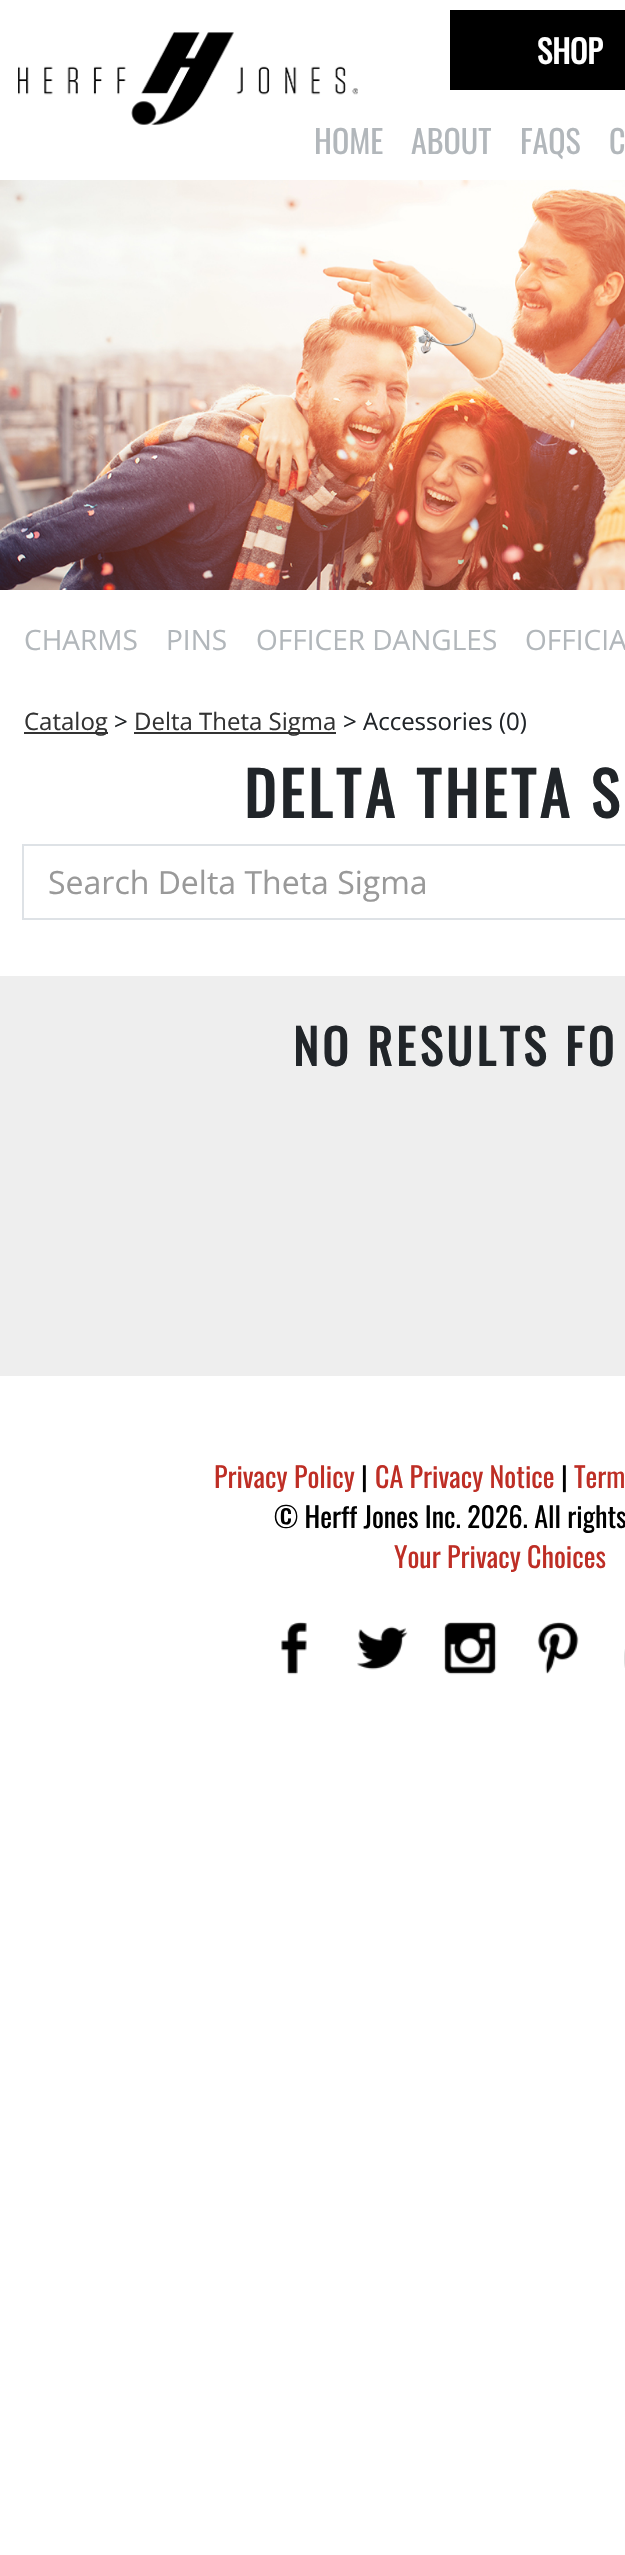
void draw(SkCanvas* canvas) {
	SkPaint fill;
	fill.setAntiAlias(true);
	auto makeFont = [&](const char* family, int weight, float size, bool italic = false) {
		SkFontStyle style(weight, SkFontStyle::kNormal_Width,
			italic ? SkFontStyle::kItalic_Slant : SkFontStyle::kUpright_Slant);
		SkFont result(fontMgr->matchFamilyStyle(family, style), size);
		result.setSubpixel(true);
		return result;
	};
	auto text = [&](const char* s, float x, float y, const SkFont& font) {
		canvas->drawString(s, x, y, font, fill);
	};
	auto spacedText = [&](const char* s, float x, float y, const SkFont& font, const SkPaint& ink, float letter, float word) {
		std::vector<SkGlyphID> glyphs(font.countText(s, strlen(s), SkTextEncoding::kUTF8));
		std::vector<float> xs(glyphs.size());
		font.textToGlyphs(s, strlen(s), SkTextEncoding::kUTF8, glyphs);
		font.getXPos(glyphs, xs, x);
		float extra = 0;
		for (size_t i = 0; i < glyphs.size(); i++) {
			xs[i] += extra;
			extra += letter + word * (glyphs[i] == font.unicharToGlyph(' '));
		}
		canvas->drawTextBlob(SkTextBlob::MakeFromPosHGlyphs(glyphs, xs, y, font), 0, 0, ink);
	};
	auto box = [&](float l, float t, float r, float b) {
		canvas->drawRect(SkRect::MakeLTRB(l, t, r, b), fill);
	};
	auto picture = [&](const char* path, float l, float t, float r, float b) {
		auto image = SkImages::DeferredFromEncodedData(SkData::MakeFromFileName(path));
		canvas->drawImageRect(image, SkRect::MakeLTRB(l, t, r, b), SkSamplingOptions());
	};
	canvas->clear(0xFFFFFFFF);
	picture("image0.png", 18, 32, 358, 125);
	fill.setColor(0xFF000000);
	box(450, 10, 625, 90);
	picture("image1.png", 0, 180, 625, 590);
	fill.setColor(0xFF333333);
	box(24, 732, 108, 734);
	box(134, 732, 336, 734);
	fill.setStyle(SkPaint::kStroke_Style);
	fill.setStrokeWidth(2);
	fill.setColor(0xFFDEE2E6);
	canvas->drawRect(SkRect::MakeLTRB(23, 845, 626, 919), fill);
	fill.setStyle(SkPaint::kFill_Style);
	fill.setColor(0xFFEEEEEE);
	box(0, 976, 625, 1376);
	picture("image2.png", 281, 1622, 307, 1675);
	picture("image3.png", 357, 1626, 408, 1670);
	picture("image4.png", 444, 1622, 497, 1675);
	picture("image5.png", 537, 1622, 579, 1674);
	picture("image6.png", 624, 1649, 625, 1668);
	auto font1 = makeFont("Oswald", 700, 32);
	fill.setColor(0xFFFFFFFF);
	text("SHOP", 537, 64, font1);
	auto font2 = makeFont("Oswald", 400, 32);
	fill.setColor(0xFFB2B7BB);
	text("HOME", 314, 154, font2);
	text("ABOUT", 411, 154, font2);
	text("FAQS", 520, 154, font2);
	text("C", 609, 154, font2);
	auto font3 = makeFont("Open Sans", 400, 28);
	text("CHARMS", 24, 650, font3);
	text("PINS", 166, 650, font3);
	text("OFFICER DANGLES", 256, 650, font3);
	text("OFFICIA", 525, 650, font3);
	auto font4 = makeFont("Open Sans", 400, 24);
	fill.setColor(0xFF333333);
	text("Catalog", 24, 730, font4);
	fill.setColor(0xFF212529);
	text(">", 114, 730, font4);
	fill.setColor(0xFF333333);
	text("Delta Theta Sigma", 134, 730, font4);
	fill.setColor(0xFF212529);
	text("> Accessories (0)", 343, 730, font4);
	auto font5 = makeFont("Oswald", 700, 60);
	spacedText("DELTA THETA S", 244, 818, font5, fill, 4, 0);
	auto font6 = makeFont("Open Sans", 400, 32);
	fill.setColor(0xFF999999);
	text("Search Delta Theta Sigma", 48, 894, font6);
	auto font7 = makeFont("Oswald", 700, 48);
	fill.setColor(0xFF212529);
	spacedText("NO RESULTS FO", 293, 1066, font7, fill, 4, 0);
	auto font8 = makeFont("Oswald", 400, 28);
	fill.setColor(0xFFBE2E25);
	text("Privacy Policy", 214, 1488, font8);
	fill.setColor(0xFF000000);
	text("|", 361, 1488, font8);
	fill.setColor(0xFFBE2E25);
	text("CA Privacy Notice", 375, 1488, font8);
	fill.setColor(0xFF000000);
	text("|", 561, 1488, font8);
	fill.setColor(0xFFBE2E25);
	text("Term", 574, 1488, font8);
	fill.setColor(0xFF000000);
	text("© Herff Jones Inc. 2026. All rights", 274, 1528, font8);
	fill.setColor(0xFFBE2E25);
	text("Your Privacy Choices", 394, 1568, font8);
}
